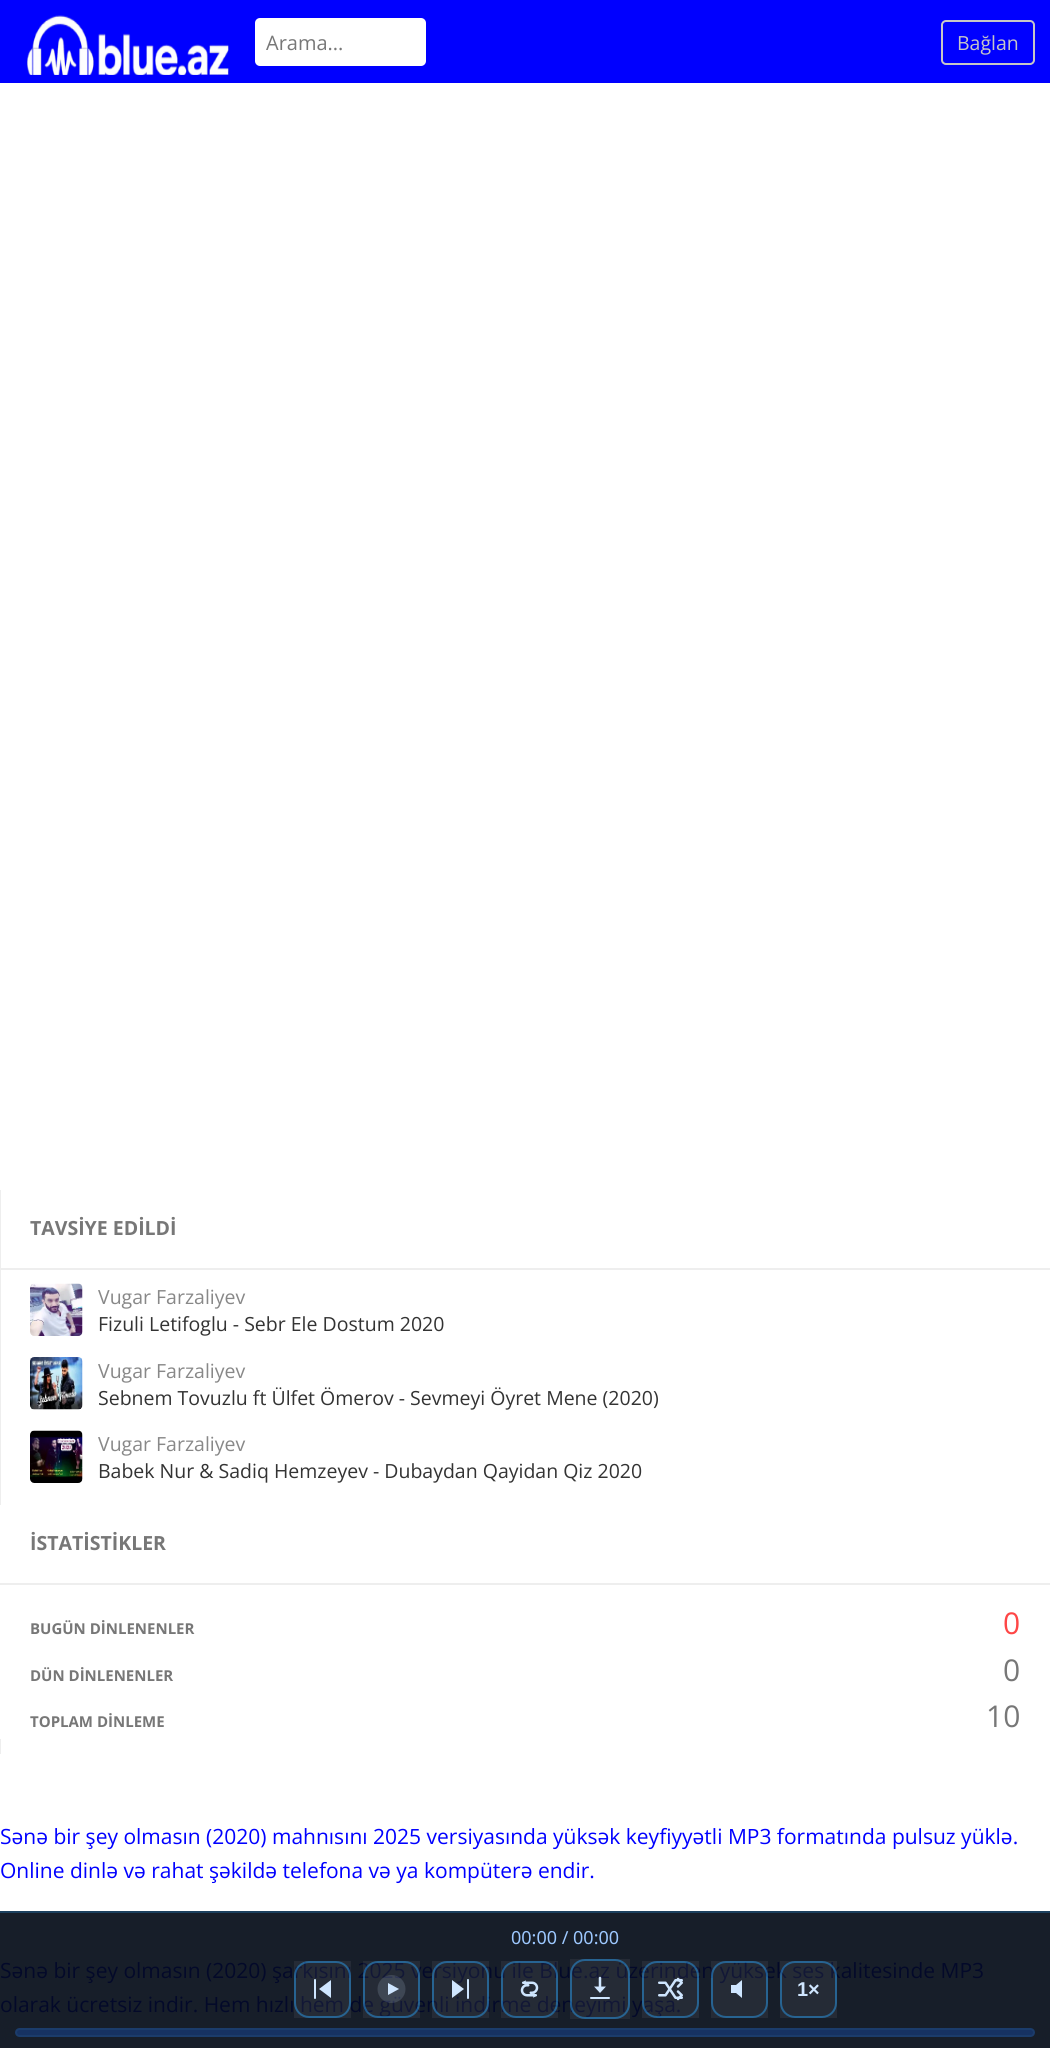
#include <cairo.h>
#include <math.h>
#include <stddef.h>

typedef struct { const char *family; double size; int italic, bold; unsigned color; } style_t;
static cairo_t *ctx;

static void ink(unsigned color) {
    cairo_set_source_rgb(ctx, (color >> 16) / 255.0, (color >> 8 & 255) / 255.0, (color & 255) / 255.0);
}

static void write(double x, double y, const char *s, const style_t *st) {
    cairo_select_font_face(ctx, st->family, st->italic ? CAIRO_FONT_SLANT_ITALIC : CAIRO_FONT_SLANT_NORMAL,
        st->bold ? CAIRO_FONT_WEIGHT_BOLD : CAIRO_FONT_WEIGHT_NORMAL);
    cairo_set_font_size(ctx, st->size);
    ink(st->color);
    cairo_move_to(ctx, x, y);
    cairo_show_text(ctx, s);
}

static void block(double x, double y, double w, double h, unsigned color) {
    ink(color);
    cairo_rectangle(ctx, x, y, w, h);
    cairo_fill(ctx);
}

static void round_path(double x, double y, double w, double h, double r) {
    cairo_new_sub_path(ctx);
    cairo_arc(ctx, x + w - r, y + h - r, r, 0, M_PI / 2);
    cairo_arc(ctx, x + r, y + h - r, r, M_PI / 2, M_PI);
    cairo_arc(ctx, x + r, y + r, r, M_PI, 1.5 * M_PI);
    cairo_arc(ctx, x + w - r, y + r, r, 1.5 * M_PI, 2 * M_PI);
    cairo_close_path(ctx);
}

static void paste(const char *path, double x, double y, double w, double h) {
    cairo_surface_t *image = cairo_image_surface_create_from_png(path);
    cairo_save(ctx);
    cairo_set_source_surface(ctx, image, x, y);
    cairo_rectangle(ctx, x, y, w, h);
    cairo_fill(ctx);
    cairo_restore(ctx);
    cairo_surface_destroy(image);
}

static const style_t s1 = {"Open Sans", 20, 0, 0, 0x777777};
static const style_t s2 = {"Open Sans", 19.5, 0, 0, 0xc6c6c6};
static const style_t s3 = {"Open Sans", 19.5, 0, 1, 0x777777};
static const style_t s4 = {"Open Sans", 19.5, 0, 0, 0x888888};
static const style_t s5 = {"Open Sans", 19.5, 0, 0, 0x333333};
static const style_t s6 = {"Open Sans", 15, 0, 1, 0x777777};
static const style_t s7 = {"Open Sans", 30, 0, 0, 0xfe4646};
static const style_t s8 = {"Open Sans", 30, 0, 0, 0x777777};
static const style_t s9 = {"Open Sans", 21, 0, 0, 0x0000ff};
static const style_t s10 = {"Open Sans", 21, 0, 0, 0x030929};
static const style_t s11 = {"Noto Sans", 18, 0, 0, 0x9dc8ff};
static const style_t s12 = {"Liberation Sans", 20, 0, 1, 0xcfe6ff};

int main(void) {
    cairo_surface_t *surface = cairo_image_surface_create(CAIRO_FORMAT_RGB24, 1050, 2048);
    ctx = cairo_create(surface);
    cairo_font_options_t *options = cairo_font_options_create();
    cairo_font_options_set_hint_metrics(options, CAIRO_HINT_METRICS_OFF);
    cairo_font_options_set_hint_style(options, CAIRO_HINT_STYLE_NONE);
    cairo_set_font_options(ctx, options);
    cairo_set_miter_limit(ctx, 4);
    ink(0xffffff);
    cairo_paint(ctx);
    block(0, 0, 1050, 83, 0x0000ff);
    paste("pic1.png", 27, 15, 202, 60);
    ink(0xffffff);
    round_path(255, 18, 171, 48, 5);
    cairo_fill(ctx);
    write(266, 50, "Arama...", &s1);
    round_path(942, 21, 92, 43, 4);
    ink(0xc6c6c6);
    cairo_stroke(ctx);
    write(957, 50, "Bağlan", &s2);
    block(0, 1913, 1050, 135, 0x171e29);
    block(0, 1190, 1, 315, 0xeeeeee);
    block(0, 1268, 1050, 2, 0xeeeeee);
    write(30, 1235, "TAVSİYE EDİLDİ", &s3);
    paste("pic2.png", 30, 1283, 53, 53);
    write(98, 1304, "Vugar Farzaliyev", &s4);
    write(98, 1331, "Fizuli Letifoglu - Sebr Ele Dostum 2020", &s5);
    paste("pic3.png", 30, 1357, 53, 53);
    write(98, 1378, "Vugar Farzaliyev", &s4);
    write(98, 1405, "Sebnem Tovuzlu ft Ülfet Ömerov - Sevmeyi Öyret Mene (2020)", &s5);
    paste("pic4.png", 30, 1430, 53, 53);
    write(98, 1451, "Vugar Farzaliyev", &s4);
    write(98, 1478, "Babek Nur & Sadiq Hemzeyev - Dubaydan Qayidan Qiz 2020", &s5);
    block(0, 1739, 1, 15, 0xeeeeee);
    block(0, 1583, 1050, 2, 0xeeeeee);
    write(30, 1550, "İSTATİSTİKLER", &s3);
    write(30, 1634, "BUGÜN DİNLENENLER", &s6);
    write(1003, 1634, "0", &s7);
    write(30, 1681, "DÜN DİNLENENLER", &s6);
    write(1003, 1681, "0", &s8);
    write(30, 1727, "TOPLAM DİNLEME", &s6);
    write(986, 1727, "10", &s8);
    write(0, 1844, "Sənə bir şey olmasın (2020) mahnısını 2025 versiyasında yüksək keyfiyyətli MP3 formatında pulsuz yüklə.", &s9);
    write(0, 1878, "Online dinlə və rahat şəkildə telefona və ya kompüterə endir.", &s9);
    write(0, 1978, "Sənə bir şey olmasın (2020) şarkısını 2025 versiyonu ile Blue.az üzerinden yüksek ses kalitesinde MP3", &s10);
    write(0, 2012, "olarak ücretsiz indir. Hem hızlı hem de güvenli indirme deneyimi yaşa.", &s10);
    block(0, 1911, 1050, 2, 0x1c405e);
    write(511, 1944, "00:00 / 00:00", &s11);
    cairo_set_source_rgba(ctx, 1, 1, 1, 0.06);
    cairo_rectangle(ctx, 294, 1961, 57, 57);
    cairo_fill(ctx);
    round_path(295, 1962, 55, 55, 14);
    cairo_set_source_rgba(ctx, 0.165, 0.659, 1, 0.45);
    cairo_stroke(ctx);
    ink(0xcfe6ff);
    round_path(314, 1979, 2, 20, 1);
    cairo_fill(ctx);
    cairo_new_path(ctx);
    cairo_move_to(ctx, 331, 1980);
    cairo_line_to(ctx, 319, 1989);
    cairo_line_to(ctx, 331, 1998);
    cairo_close_path(ctx);
    cairo_fill(ctx);
    cairo_set_source_rgba(ctx, 1, 1, 1, 0.06);
    cairo_rectangle(ctx, 363, 1961, 57, 57);
    cairo_fill(ctx);
    round_path(364, 1962, 55, 55, 14);
    cairo_set_source_rgba(ctx, 0.165, 0.659, 1, 0.45);
    cairo_stroke(ctx);
    cairo_set_source_rgba(ctx, 0.812, 0.902, 1, 0.15);
    cairo_arc(ctx, 391.5, 1989, 14, 0, 2 * M_PI);
    cairo_fill(ctx);
    ink(0xcfe6ff);
    cairo_new_path(ctx);
    cairo_move_to(ctx, 388, 1983);
    cairo_line_to(ctx, 399, 1989);
    cairo_line_to(ctx, 388, 1995);
    cairo_close_path(ctx);
    cairo_fill(ctx);
    cairo_set_source_rgba(ctx, 1, 1, 1, 0.06);
    cairo_rectangle(ctx, 432, 1961, 57, 57);
    cairo_fill(ctx);
    round_path(433, 1962, 55, 55, 14);
    cairo_set_source_rgba(ctx, 0.165, 0.659, 1, 0.45);
    cairo_stroke(ctx);
    ink(0xcfe6ff);
    round_path(467, 1979, 2, 20, 1);
    cairo_fill(ctx);
    cairo_new_path(ctx);
    cairo_move_to(ctx, 452, 1980);
    cairo_line_to(ctx, 464, 1989);
    cairo_line_to(ctx, 452, 1998);
    cairo_close_path(ctx);
    cairo_fill(ctx);
    cairo_set_source_rgba(ctx, 1, 1, 1, 0.06);
    cairo_rectangle(ctx, 501, 1961, 57, 57);
    cairo_fill(ctx);
    round_path(502, 1962, 55, 55, 14);
    cairo_set_source_rgba(ctx, 0.165, 0.659, 1, 0.45);
    cairo_stroke(ctx);
    paste("pic5.png", 520, 1980, 19, 18);
    cairo_set_source_rgba(ctx, 1, 1, 1, 0.06);
    cairo_rectangle(ctx, 570, 1959, 60, 60);
    cairo_fill(ctx);
    round_path(571, 1960, 58, 58, 14);
    cairo_set_source_rgba(ctx, 0.165, 0.659, 1, 0.45);
    cairo_stroke(ctx);
    cairo_new_path(ctx);
    cairo_move_to(ctx, 600, 1978);
    cairo_line_to(ctx, 600, 1990);
    ink(0xcfe6ff);
    cairo_set_line_width(ctx, 2.5);
    cairo_set_line_cap(ctx, CAIRO_LINE_CAP_ROUND);
    cairo_stroke(ctx);
    cairo_new_path(ctx);
    cairo_move_to(ctx, 594, 1986.5);
    cairo_line_to(ctx, 600, 1993);
    cairo_line_to(ctx, 606, 1986.5);
    cairo_fill(ctx);
    round_path(590, 1997, 20, 2, 1);
    cairo_fill(ctx);
    cairo_set_source_rgba(ctx, 1, 1, 1, 0.06);
    cairo_rectangle(ctx, 642, 1961, 57, 57);
    cairo_fill(ctx);
    round_path(643, 1962, 55, 55, 14);
    cairo_set_source_rgba(ctx, 0.165, 0.659, 1, 0.45);
    cairo_set_line_width(ctx, 2);
    cairo_set_line_cap(ctx, CAIRO_LINE_CAP_BUTT);
    cairo_stroke(ctx);
    paste("pic6.png", 658, 1977, 25, 24);
    cairo_set_source_rgba(ctx, 1, 1, 1, 0.06);
    cairo_rectangle(ctx, 711, 1961, 57, 57);
    cairo_fill(ctx);
    round_path(712, 1962, 55, 55, 14);
    cairo_set_source_rgba(ctx, 0.165, 0.659, 1, 0.45);
    cairo_stroke(ctx);
    ink(0xcfe6ff);
    cairo_new_path(ctx);
    cairo_move_to(ctx, 731, 1985);
    cairo_line_to(ctx, 736, 1985);
    cairo_line_to(ctx, 742, 1980);
    cairo_line_to(ctx, 742, 1998);
    cairo_line_to(ctx, 736, 1993);
    cairo_line_to(ctx, 731, 1993);
    cairo_close_path(ctx);
    cairo_fill(ctx);
    cairo_set_source_rgba(ctx, 1, 1, 1, 0.06);
    cairo_rectangle(ctx, 780, 1961, 57, 57);
    cairo_fill(ctx);
    round_path(781, 1962, 55, 55, 14);
    cairo_set_source_rgba(ctx, 0.165, 0.659, 1, 0.45);
    cairo_stroke(ctx);
    write(797, 1996, "1×", &s12);
    ink(0x163262);
    round_path(16, 2029, 1018, 7, 3.5);
    cairo_fill_preserve(ctx);
    ink(0x1b3c6b);
    cairo_stroke(ctx);
    cairo_surface_write_to_png(surface, "screenshot.png");
    cairo_font_options_destroy(options);
    cairo_destroy(ctx);
    cairo_surface_destroy(surface);
    return 0;
}
